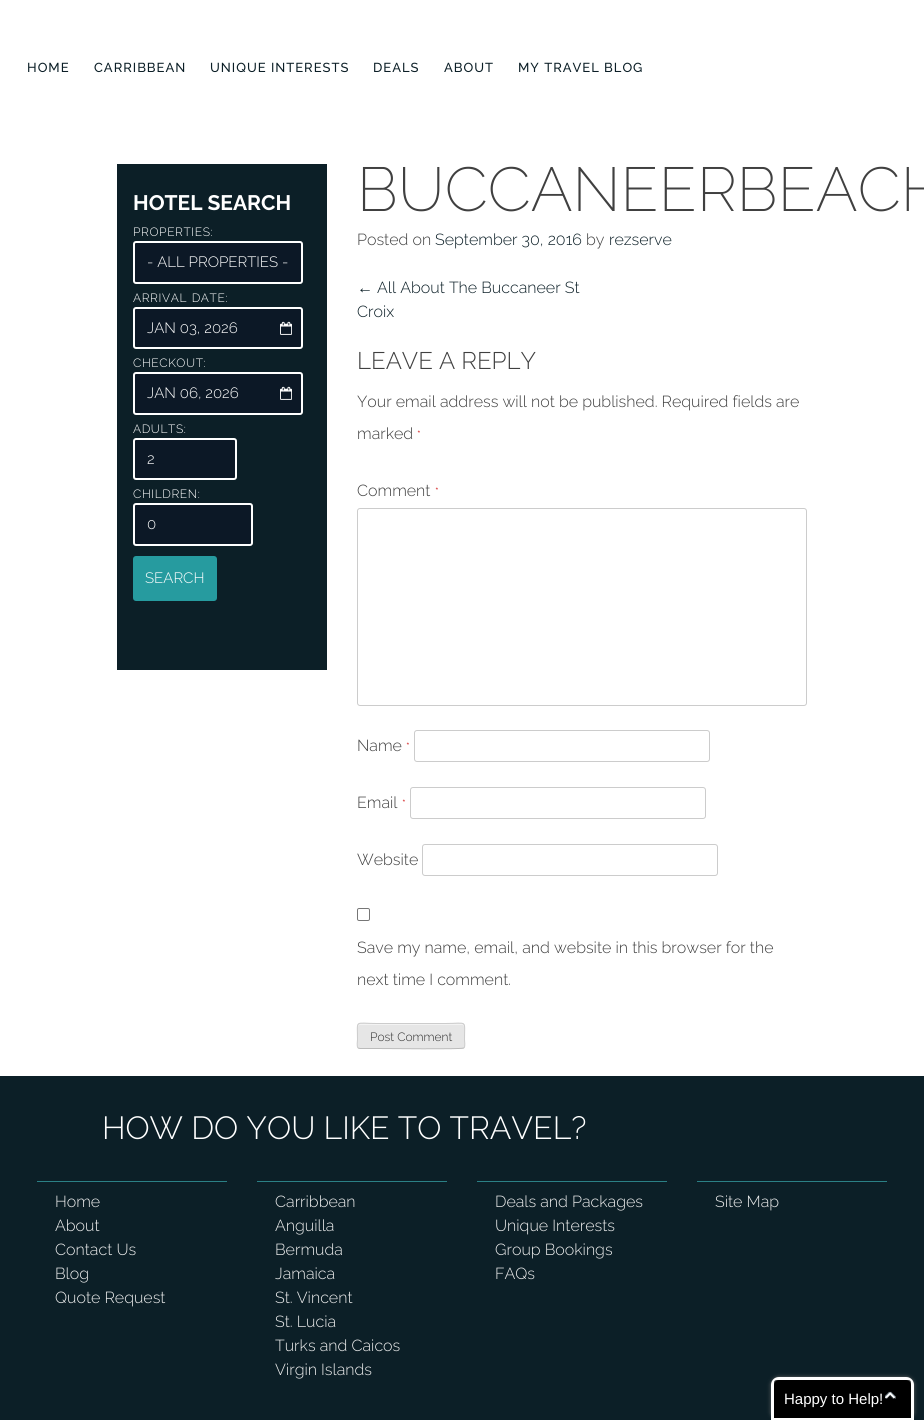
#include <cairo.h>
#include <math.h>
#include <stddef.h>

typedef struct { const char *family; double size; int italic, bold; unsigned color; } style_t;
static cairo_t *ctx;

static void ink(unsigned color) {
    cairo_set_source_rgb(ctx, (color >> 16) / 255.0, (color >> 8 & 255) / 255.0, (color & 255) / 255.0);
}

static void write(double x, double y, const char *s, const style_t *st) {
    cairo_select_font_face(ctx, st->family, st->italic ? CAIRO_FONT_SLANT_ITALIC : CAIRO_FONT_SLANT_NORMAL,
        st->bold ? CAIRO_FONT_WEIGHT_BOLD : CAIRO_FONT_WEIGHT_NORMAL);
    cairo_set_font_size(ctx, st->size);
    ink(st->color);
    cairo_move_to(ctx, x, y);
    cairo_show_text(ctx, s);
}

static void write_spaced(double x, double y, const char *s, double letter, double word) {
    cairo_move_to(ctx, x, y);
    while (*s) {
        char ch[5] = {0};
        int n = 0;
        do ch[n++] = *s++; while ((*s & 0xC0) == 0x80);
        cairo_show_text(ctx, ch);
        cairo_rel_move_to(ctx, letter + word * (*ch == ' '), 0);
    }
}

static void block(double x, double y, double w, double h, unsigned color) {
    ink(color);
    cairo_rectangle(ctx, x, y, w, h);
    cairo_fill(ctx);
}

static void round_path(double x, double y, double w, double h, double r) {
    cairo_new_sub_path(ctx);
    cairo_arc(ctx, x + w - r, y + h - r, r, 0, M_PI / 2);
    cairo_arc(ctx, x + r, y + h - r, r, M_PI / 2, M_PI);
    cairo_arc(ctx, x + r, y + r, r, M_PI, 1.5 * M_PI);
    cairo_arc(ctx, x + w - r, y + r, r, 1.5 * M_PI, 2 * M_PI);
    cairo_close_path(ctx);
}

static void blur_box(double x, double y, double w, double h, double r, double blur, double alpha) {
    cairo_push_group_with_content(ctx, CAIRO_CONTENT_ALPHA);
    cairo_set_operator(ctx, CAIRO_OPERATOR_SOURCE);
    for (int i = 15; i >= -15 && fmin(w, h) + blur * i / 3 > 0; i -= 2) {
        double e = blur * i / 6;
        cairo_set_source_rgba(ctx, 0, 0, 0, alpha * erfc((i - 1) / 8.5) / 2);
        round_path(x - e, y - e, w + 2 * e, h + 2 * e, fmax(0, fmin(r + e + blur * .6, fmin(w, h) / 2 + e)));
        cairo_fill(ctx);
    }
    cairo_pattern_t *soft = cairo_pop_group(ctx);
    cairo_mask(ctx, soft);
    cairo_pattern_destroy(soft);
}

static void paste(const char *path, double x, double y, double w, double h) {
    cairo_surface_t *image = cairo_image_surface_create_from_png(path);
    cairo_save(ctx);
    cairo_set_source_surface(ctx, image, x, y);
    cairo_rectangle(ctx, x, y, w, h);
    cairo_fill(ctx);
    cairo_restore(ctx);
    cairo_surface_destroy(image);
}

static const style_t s1 = {"Raleway", 21, 0, 1, 0xffffff};
static const style_t s2 = {"Raleway Light", 15, 0, 0, 0xffffff};
static const style_t s3 = {"Raleway ExtraLight", 62, 0, 0, 0x404040};
static const style_t s4 = {"Raleway Light", 16, 0, 0, 0x404040};
static const style_t s5 = {"Raleway Light", 16, 0, 0, 0x0c1f27};
static const style_t s6 = {"Liberation Serif", 16, 0, 0, 0x0c1f27};
static const style_t s7 = {"Raleway Light", 24, 0, 0, 0x404040};
static const style_t s8 = {"Raleway Light", 12, 0, 0, 0xcc0000};
static const style_t s9 = {"Raleway Light", 12, 0, 0, 0x2e2e2e};
static const style_t s10 = {"Raleway Light", 32, 0, 0, 0xffffff};
static const style_t s11 = {"Raleway Light", 16, 0, 0, 0xededed};
static const style_t s12 = {"Liberation Sans", 15, 0, 0, 0xffffff};

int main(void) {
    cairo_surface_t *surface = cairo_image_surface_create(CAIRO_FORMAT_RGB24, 924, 1420);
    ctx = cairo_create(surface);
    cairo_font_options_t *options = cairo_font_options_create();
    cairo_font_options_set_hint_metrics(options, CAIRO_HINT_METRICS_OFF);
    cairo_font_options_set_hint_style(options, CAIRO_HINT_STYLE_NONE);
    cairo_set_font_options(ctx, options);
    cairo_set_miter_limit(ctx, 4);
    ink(0x0c1f27);
    cairo_paint(ctx);
    block(0, 0, 924, 1076, 0xffffff);
    cairo_select_font_face(ctx, "Raleway Medium", CAIRO_FONT_SLANT_NORMAL, CAIRO_FONT_WEIGHT_NORMAL);
    cairo_set_font_size(ctx, 13);
    ink(0x0c1f27);
    write_spaced(27, 72, "HOME", 1, 0);
    write_spaced(94, 72, "CARRIBBEAN", 1, 0);
    write_spaced(210, 72, "UNIQUE INTERESTS", 1, 0);
    write_spaced(373, 72, "DEALS", 1, 0);
    write_spaced(444, 72, "ABOUT", 1, 0);
    write_spaced(518, 72, "MY TRAVEL BLOG", 1, 0);
    block(117, 164, 210, 506, 0x0c1f27);
    write(133, 210, "HOTEL SEARCH", &s1);
    cairo_select_font_face(ctx, "Raleway Light", CAIRO_FONT_SLANT_NORMAL, CAIRO_FONT_WEIGHT_NORMAL);
    cairo_set_font_size(ctx, 12);
    write_spaced(133, 236, "PROPERTIES:", 0.6, 0);
    ink(0x0c1826);
    round_path(134, 242, 168, 41, 2);
    cairo_fill_preserve(ctx);
    ink(0xffffff);
    cairo_stroke(ctx);
    write(147, 267, "- ALL PROPERTIES -", &s2);
    cairo_set_font_size(ctx, 12);
    write_spaced(133, 302, "ARRIVAL DATE:", 0.6, 1);
    ink(0x0c1826);
    round_path(134, 308, 168, 40, 2);
    cairo_fill_preserve(ctx);
    ink(0xffffff);
    cairo_stroke(ctx);
    write(147, 333, "JAN 03, 2026", &s2);
    paste("pic1.png", 280, 321, 12, 14);
    cairo_set_font_size(ctx, 12);
    write_spaced(133, 367, "CHECKOUT:", 0.6, 0);
    ink(0x0c1826);
    round_path(134, 373, 168, 41, 2);
    cairo_fill_preserve(ctx);
    ink(0xffffff);
    cairo_stroke(ctx);
    write(147, 398, "JAN 06, 2026", &s2);
    paste("pic1.png", 280, 386, 12, 14);
    cairo_set_font_size(ctx, 12);
    write_spaced(133, 433, "ADULTS:", 0.6, 0);
    ink(0x0c1826);
    round_path(134, 439, 102, 40, 2);
    cairo_fill_preserve(ctx);
    ink(0xffffff);
    cairo_stroke(ctx);
    write(147, 464, "2", &s2);
    cairo_set_font_size(ctx, 12);
    write_spaced(133, 498, "CHILDREN:", 0.6, 0);
    ink(0x0c1826);
    round_path(134, 504, 118, 41, 2);
    cairo_fill_preserve(ctx);
    ink(0xffffff);
    cairo_stroke(ctx);
    write(147, 529, "0", &s2);
    ink(0x269b9f);
    round_path(133, 556, 84, 45, 3);
    cairo_fill(ctx);
    write(145, 583, "SEARCH", &s2);
    write(357, 211, "BUCCANEERBEACH", &s3);
    write(357, 245, "Posted on", &s4);
    write(435, 245, "September 30, 2016", &s5);
    write(586, 245, "by", &s4);
    write(609, 245, "rezserve", &s5);
    write(357, 293, "←", &s6);
    write(377, 293, "All About The Buccaneer St", &s5);
    write(357, 317, "Croix", &s5);
    write(357, 369, "LEAVE A REPLY", &s7);
    write(357, 407, "Your email address will not be published. Required fields are", &s4);
    write(357, 439, "marked", &s4);
    write(417, 439, "*", &s8);
    write(357, 496, "Comment", &s4);
    write(435, 496, "*", &s8);
    round_path(357.5, 508.5, 449, 197, 2.5);
    ink(0xcccccc);
    cairo_set_line_width(ctx, 1);
    cairo_stroke(ctx);
    write(357, 751, "Name", &s4);
    write(406, 751, "*", &s8);
    round_path(414.5, 730.5, 295, 31, 2.5);
    ink(0xcccccc);
    cairo_stroke(ctx);
    write(357, 808, "Email", &s4);
    write(402, 808, "*", &s8);
    round_path(410.5, 787.5, 295, 31, 2.5);
    ink(0xcccccc);
    cairo_stroke(ctx);
    write(357, 865, "Website", &s4);
    round_path(422.5, 844.5, 295, 31, 2.5);
    ink(0xcccccc);
    cairo_stroke(ctx);
    round_path(357.5, 908.5, 12, 12, 1.5);
    ink(0x767676);
    cairo_stroke(ctx);
    write(357, 953, "Save my name, email, and website in this browser for the", &s4);
    write(357, 985, "next time I comment.", &s4);
    ink(0xe6e6e6);
    round_path(357, 1023, 108, 26, 3);
    cairo_fill(ctx);
    ink(0xf3f3f3);
    cairo_new_path(ctx);
    cairo_move_to(ctx, 360, 1025);
    cairo_line_to(ctx, 462, 1025);
    cairo_curve_to(ctx, 463, 1025, 464, 1026, 464, 1027);
    cairo_curve_to(ctx, 464, 1026, 464, 1024, 462, 1024);
    cairo_line_to(ctx, 360, 1024);
    cairo_curve_to(ctx, 358, 1024, 358, 1026, 358, 1027);
    cairo_curve_to(ctx, 358, 1026, 359, 1025, 360, 1025);
    cairo_close_path(ctx);
    cairo_fill(ctx);
    cairo_new_path(ctx);
    cairo_move_to(ctx, 464, 1048);
    cairo_line_to(ctx, 463.5, 1048);
    cairo_curve_to(ctx, 461.5, 1049.5, 386, 1048.5, 377, 1048.5);
    cairo_line_to(ctx, 360, 1048.5);
    cairo_line_to(ctx, 358, 1048);
    ink(0xbbbbbb);
    cairo_stroke(ctx);
    cairo_new_path(ctx);
    cairo_move_to(ctx, 358, 1048);
    cairo_curve_to(ctx, 356.5, 1046, 357.5, 1041.5, 357.5, 1039.5);
    cairo_curve_to(ctx, 357.5, 1019, 354, 1023.5, 377, 1023.5);
    cairo_line_to(ctx, 445, 1023.5);
    cairo_curve_to(ctx, 468, 1023.5, 464.5, 1019, 464.5, 1039.5);
    cairo_curve_to(ctx, 464.5, 1041.5, 465.5, 1046, 464, 1048);
    ink(0xcccccc);
    cairo_stroke(ctx);
    write(370, 1041, "Post Comment", &s9);
    write(102, 1139, "HOW DO YOU LIKE TO TRAVEL?", &s10);
    block(37, 1181, 190, 1, 0x2b8085);
    write(55, 1207, "Home", &s11);
    write(55, 1231, "About", &s11);
    write(55, 1255, "Contact Us", &s11);
    write(55, 1279, "Blog", &s11);
    write(55, 1303, "Quote Request", &s11);
    block(257, 1181, 190, 1, 0x2b8085);
    write(275, 1207, "Carribbean", &s11);
    write(275, 1231, "Anguilla", &s11);
    write(275, 1255, "Bermuda", &s11);
    write(275, 1279, "Jamaica", &s11);
    write(275, 1303, "St. Vincent", &s11);
    write(275, 1327, "St. Lucia", &s11);
    write(275, 1351, "Turks and Caicos", &s11);
    write(275, 1375, "Virgin Islands", &s11);
    block(477, 1181, 190, 1, 0x2b8085);
    write(495, 1207, "Deals and Packages", &s11);
    write(495, 1231, "Unique Interests", &s11);
    write(495, 1255, "Group Bookings", &s11);
    write(495, 1279, "FAQs", &s11);
    block(697, 1181, 190, 1, 0x2b8085);
    write(715, 1207, "Site Map", &s11);
    ink(0x666666);
    blur_box(771, 1377, 143, 43, 8, 2, 1);
    ink(0x000000);
    cairo_new_path(ctx);
    cairo_move_to(ctx, 779, 1380);
    cairo_line_to(ctx, 906, 1380);
    cairo_curve_to(ctx, 909, 1380, 911, 1382, 911, 1385);
    cairo_line_to(ctx, 911, 1418);
    cairo_line_to(ctx, 774, 1418);
    cairo_line_to(ctx, 774, 1385);
    cairo_curve_to(ctx, 774, 1382, 776, 1380, 779, 1380);
    cairo_close_path(ctx);
    cairo_fill(ctx);
    paste("pic2.png", 885, 1391, 11, 8);
    cairo_new_path(ctx);
    cairo_move_to(ctx, 779, 1378);
    cairo_line_to(ctx, 906, 1378);
    cairo_curve_to(ctx, 910, 1378, 913, 1381, 913, 1385);
    cairo_line_to(ctx, 913, 1419);
    cairo_line_to(ctx, 772, 1419);
    cairo_line_to(ctx, 772, 1385);
    cairo_curve_to(ctx, 772, 1381, 775, 1378, 779, 1378);
    cairo_close_path(ctx);
    ink(0xffffff);
    cairo_set_line_width(ctx, 2);
    cairo_stroke(ctx);
    block(775, 1379, 135, 1, 0xffffff);
    block(911, 1381, 1, 39, 0xffffff);
    block(773, 1381, 1, 39, 0xffffff);
    write(784, 1404, "Happy to Help!", &s12);
    cairo_surface_write_to_png(surface, "screenshot.png");
    cairo_font_options_destroy(options);
    cairo_destroy(ctx);
    cairo_surface_destroy(surface);
    return 0;
}
